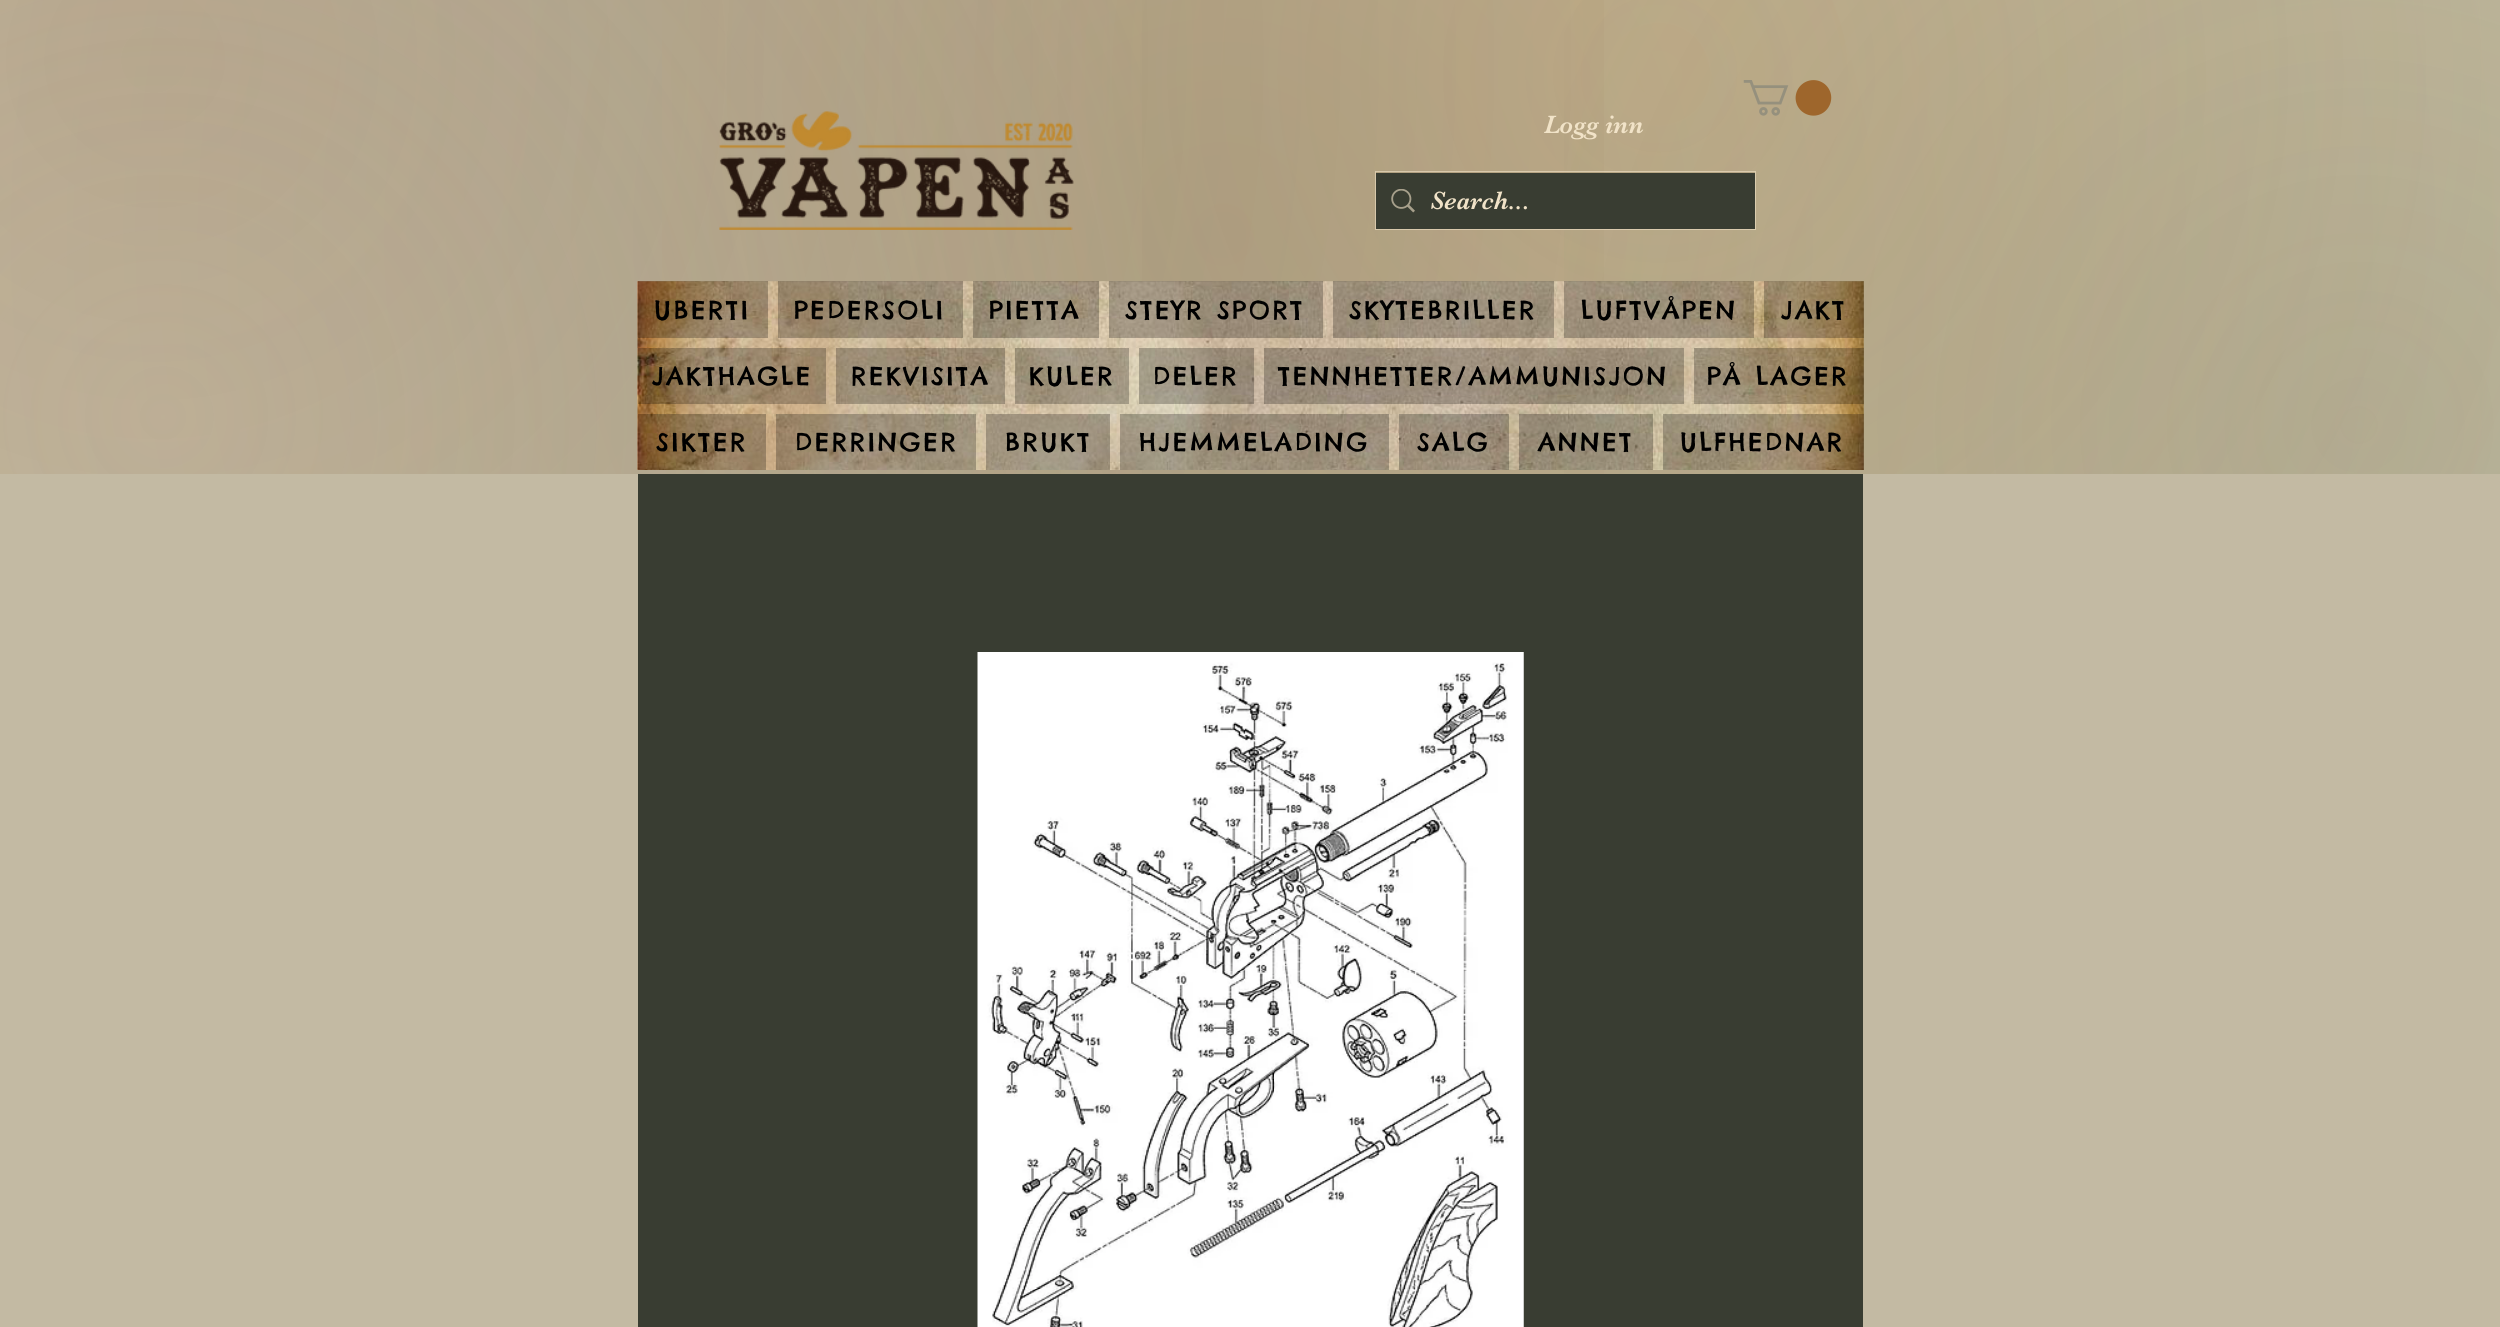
#include <cairo.h>
#include <math.h>
#include <stddef.h>

typedef struct { const char *family; double size; int italic, bold; unsigned color; } style_t;
static cairo_t *ctx;

static void ink(unsigned color) {
    cairo_set_source_rgb(ctx, (color >> 16) / 255.0, (color >> 8 & 255) / 255.0, (color & 255) / 255.0);
}

static void write(double x, double y, const char *s, const style_t *st) {
    cairo_select_font_face(ctx, st->family, st->italic ? CAIRO_FONT_SLANT_ITALIC : CAIRO_FONT_SLANT_NORMAL,
        st->bold ? CAIRO_FONT_WEIGHT_BOLD : CAIRO_FONT_WEIGHT_NORMAL);
    cairo_set_font_size(ctx, st->size);
    ink(st->color);
    cairo_move_to(ctx, x, y);
    cairo_show_text(ctx, s);
}

static void write_spaced(double x, double y, const char *s, double letter, double word) {
    cairo_move_to(ctx, x, y);
    while (*s) {
        char ch[5] = {0};
        int n = 0;
        do ch[n++] = *s++; while ((*s & 0xC0) == 0x80);
        cairo_show_text(ctx, ch);
        cairo_rel_move_to(ctx, letter + word * (*ch == ' '), 0);
    }
}

static void block(double x, double y, double w, double h, unsigned color) {
    ink(color);
    cairo_rectangle(ctx, x, y, w, h);
    cairo_fill(ctx);
}

static void paste(const char *path, double x, double y, double w, double h) {
    cairo_surface_t *image = cairo_image_surface_create_from_png(path);
    cairo_save(ctx);
    cairo_set_source_surface(ctx, image, x, y);
    cairo_rectangle(ctx, x, y, w, h);
    cairo_fill(ctx);
    cairo_restore(ctx);
    cairo_surface_destroy(image);
}

static const style_t s1 = {"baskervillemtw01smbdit", 26, 0, 0, 0xf1e3c8};

int main(void) {
    cairo_surface_t *surface = cairo_image_surface_create(CAIRO_FORMAT_RGB24, 2500, 1327);
    ctx = cairo_create(surface);
    cairo_font_options_t *options = cairo_font_options_create();
    cairo_font_options_set_hint_metrics(options, CAIRO_HINT_METRICS_OFF);
    cairo_font_options_set_hint_style(options, CAIRO_HINT_STYLE_NONE);
    cairo_set_font_options(ctx, options);
    cairo_set_miter_limit(ctx, 4);
    cairo_pattern_t *gradient;
    ink(0xc3baa3);
    cairo_paint(ctx);
    gradient = cairo_pattern_create_radial(1223, 235, 0, 1223, 235, 1300);
    cairo_pattern_add_color_stop_rgba(gradient, 0, 0.667, 0.651, 0.557, 1);
    cairo_pattern_add_color_stop_rgba(gradient, 1, 0.757, 0.733, 0.631, 1);
    cairo_set_source(ctx, gradient);
    cairo_pattern_destroy(gradient);
    cairo_rectangle(ctx, 0, 0, 2500, 474);
    cairo_fill(ctx);
    gradient = cairo_pattern_create_radial(1659, 74, 0, 1659, 74, 1706);
    cairo_pattern_add_color_stop_rgba(gradient, 0, 0.929, 0.6, 0.259, 0.17);
    cairo_pattern_add_color_stop_rgba(gradient, 0.7, 0.929, 0.6, 0.259, 0);
    cairo_set_source(ctx, gradient);
    cairo_pattern_destroy(gradient);
    cairo_rectangle(ctx, 662, 0, 1838, 474);
    cairo_fill(ctx);
    gradient = cairo_pattern_create_radial(154, 60, 0, 154, 60, 2382);
    cairo_pattern_add_color_stop_rgba(gradient, 0, 0.404, 0.153, 0.078, 0.17);
    cairo_pattern_add_color_stop_rgba(gradient, 0.7, 0.404, 0.153, 0.078, 0);
    cairo_set_source(ctx, gradient);
    cairo_pattern_destroy(gradient);
    cairo_rectangle(ctx, 0, 0, 1604, 474);
    cairo_fill(ctx);
    gradient = cairo_pattern_create_radial(2359, 425, 0, 2359, 425, 2397);
    cairo_pattern_add_color_stop_rgba(gradient, 0, 0.294, 0.353, 0.318, 0.13);
    cairo_pattern_add_color_stop_rgba(gradient, 0.4, 0.294, 0.353, 0.318, 0);
    cairo_set_source(ctx, gradient);
    cairo_pattern_destroy(gradient);
    cairo_rectangle(ctx, 1564, 0, 936, 474);
    cairo_fill(ctx);
    paste("pic1.png", 1743, 80, 89, 36);
    gradient = cairo_pattern_create_radial(163, 417, 0, 163, 417, 2374);
    cairo_pattern_add_color_stop_rgba(gradient, 0, 0.945, 0.89, 0.784, 0.17);
    cairo_pattern_add_color_stop_rgba(gradient, 0.5, 0.945, 0.89, 0.784, 0);
    cairo_set_source(ctx, gradient);
    cairo_pattern_destroy(gradient);
    cairo_rectangle(ctx, 0, 0, 1142, 474);
    cairo_fill(ctx);
    paste("pic2.png", 719, 111, 355, 119);
    write(1544, 133, "Logg inn", &s1);
    cairo_rectangle(ctx, 1375.5, 171.5, 380, 58);
    cairo_set_source_rgba(ctx, 0.945, 0.89, 0.784, 0.6);
    cairo_set_line_width(ctx, 1);
    cairo_stroke(ctx);
    block(1376, 173, 379, 56, 0x393d32);
    paste("pic3.png", 1391, 189, 24, 24);
    write(1430, 209, "Search...", &s1);
    paste("pic4.png", 637, 281, 1227, 189);
    cairo_set_source_rgba(ctx, 0, 0, 0, 0.25);
    cairo_rectangle(ctx, 638, 281, 130, 57);
    cairo_fill(ctx);
    cairo_select_font_face(ctx, "Chelsea Market", CAIRO_FONT_SLANT_NORMAL, CAIRO_FONT_WEIGHT_NORMAL);
    cairo_set_font_size(ctx, 25);
    ink(0x000000);
    write_spaced(654, 319, "UBERTI", 2.5, 0);
    cairo_set_source_rgba(ctx, 0, 0, 0, 0.25);
    cairo_rectangle(ctx, 778, 281, 185, 57);
    cairo_fill(ctx);
    ink(0x000000);
    write_spaced(794, 319, "PEDERSOLI", 2.5, 0);
    cairo_set_source_rgba(ctx, 0, 0, 0, 0.25);
    cairo_rectangle(ctx, 973, 281, 126, 57);
    cairo_fill(ctx);
    ink(0x000000);
    write_spaced(989, 319, "PIETTA", 2.5, 0);
    cairo_set_source_rgba(ctx, 0, 0, 0, 0.25);
    cairo_rectangle(ctx, 1109, 281, 214, 57);
    cairo_fill(ctx);
    ink(0x000000);
    write_spaced(1125, 319, "STEYR SPORT", 2.5, 0);
    cairo_set_source_rgba(ctx, 0, 0, 0, 0.25);
    cairo_rectangle(ctx, 1333, 281, 221, 57);
    cairo_fill(ctx);
    ink(0x000000);
    write_spaced(1349, 319, "SKYTEBRILLER", 2.5, 0);
    cairo_set_source_rgba(ctx, 0, 0, 0, 0.25);
    cairo_rectangle(ctx, 1564, 281, 190, 57);
    cairo_fill(ctx);
    ink(0x000000);
    write_spaced(1581, 319, "LUFTVÅPEN", 2.5, 0);
    cairo_set_source_rgba(ctx, 0, 0, 0, 0.25);
    cairo_rectangle(ctx, 1764, 281, 100, 57);
    cairo_fill(ctx);
    ink(0x000000);
    write_spaced(1781, 319, "JAKT", 2.5, 0);
    cairo_set_source_rgba(ctx, 0, 0, 0, 0.25);
    cairo_rectangle(ctx, 638, 348, 188, 56);
    cairo_fill(ctx);
    ink(0x000000);
    write_spaced(652, 385, "JAKTHAGLE", 2.5, 0);
    cairo_set_source_rgba(ctx, 0, 0, 0, 0.25);
    cairo_rectangle(ctx, 836, 348, 169, 56);
    cairo_fill(ctx);
    ink(0x000000);
    write_spaced(851, 385, "REKVISITA", 2.5, 0);
    cairo_set_source_rgba(ctx, 0, 0, 0, 0.25);
    cairo_rectangle(ctx, 1015, 348, 114, 56);
    cairo_fill(ctx);
    ink(0x000000);
    write_spaced(1029, 385, "KULER", 2.5, 0);
    cairo_set_source_rgba(ctx, 0, 0, 0, 0.25);
    cairo_rectangle(ctx, 1139, 348, 115, 56);
    cairo_fill(ctx);
    ink(0x000000);
    write_spaced(1153, 385, "DELER", 2.5, 0);
    cairo_set_source_rgba(ctx, 0, 0, 0, 0.25);
    cairo_rectangle(ctx, 1264, 348, 420, 56);
    cairo_fill(ctx);
    ink(0x000000);
    write_spaced(1278, 385, "TENNHETTER/AMMUNISJON", 2.5, 0);
    cairo_set_source_rgba(ctx, 0, 0, 0, 0.25);
    cairo_rectangle(ctx, 1694, 348, 170, 56);
    cairo_fill(ctx);
    ink(0x000000);
    write_spaced(1707, 385, "PÅ LAGER", 2.5, 0);
    cairo_set_source_rgba(ctx, 0, 0, 0, 0.25);
    cairo_rectangle(ctx, 638, 414, 128, 56);
    cairo_fill(ctx);
    ink(0x000000);
    write_spaced(656, 451, "SIKTER", 2.5, 0);
    cairo_set_source_rgba(ctx, 0, 0, 0, 0.25);
    cairo_rectangle(ctx, 776, 414, 200, 56);
    cairo_fill(ctx);
    ink(0x000000);
    write_spaced(795, 451, "DERRINGER", 2.5, 0);
    cairo_set_source_rgba(ctx, 0, 0, 0, 0.25);
    cairo_rectangle(ctx, 986, 414, 124, 56);
    cairo_fill(ctx);
    ink(0x000000);
    write_spaced(1005, 451, "BRUKT", 2.5, 0);
    cairo_set_source_rgba(ctx, 0, 0, 0, 0.25);
    cairo_rectangle(ctx, 1120, 414, 269, 56);
    cairo_fill(ctx);
    ink(0x000000);
    write_spaced(1139, 451, "HJEMMELADING", 2.5, 0);
    cairo_set_source_rgba(ctx, 0, 0, 0, 0.25);
    cairo_rectangle(ctx, 1399, 414, 110, 56);
    cairo_fill(ctx);
    ink(0x000000);
    write_spaced(1417, 451, "SALG", 2.5, 0);
    cairo_set_source_rgba(ctx, 0, 0, 0, 0.25);
    cairo_rectangle(ctx, 1519, 414, 134, 56);
    cairo_fill(ctx);
    ink(0x000000);
    write_spaced(1538, 451, "ANNET", 2.5, 0);
    cairo_set_source_rgba(ctx, 0, 0, 0, 0.25);
    cairo_rectangle(ctx, 1663, 414, 201, 56);
    cairo_fill(ctx);
    ink(0x000000);
    write_spaced(1680, 451, "ULFHEDNAR", 2.5, 0);
    block(638, 474, 1225, 853, 0x393d32);
    paste("pic5.png", 977, 652, 547, 675);
    cairo_surface_write_to_png(surface, "screenshot.png");
    cairo_font_options_destroy(options);
    cairo_destroy(ctx);
    cairo_surface_destroy(surface);
    return 0;
}
